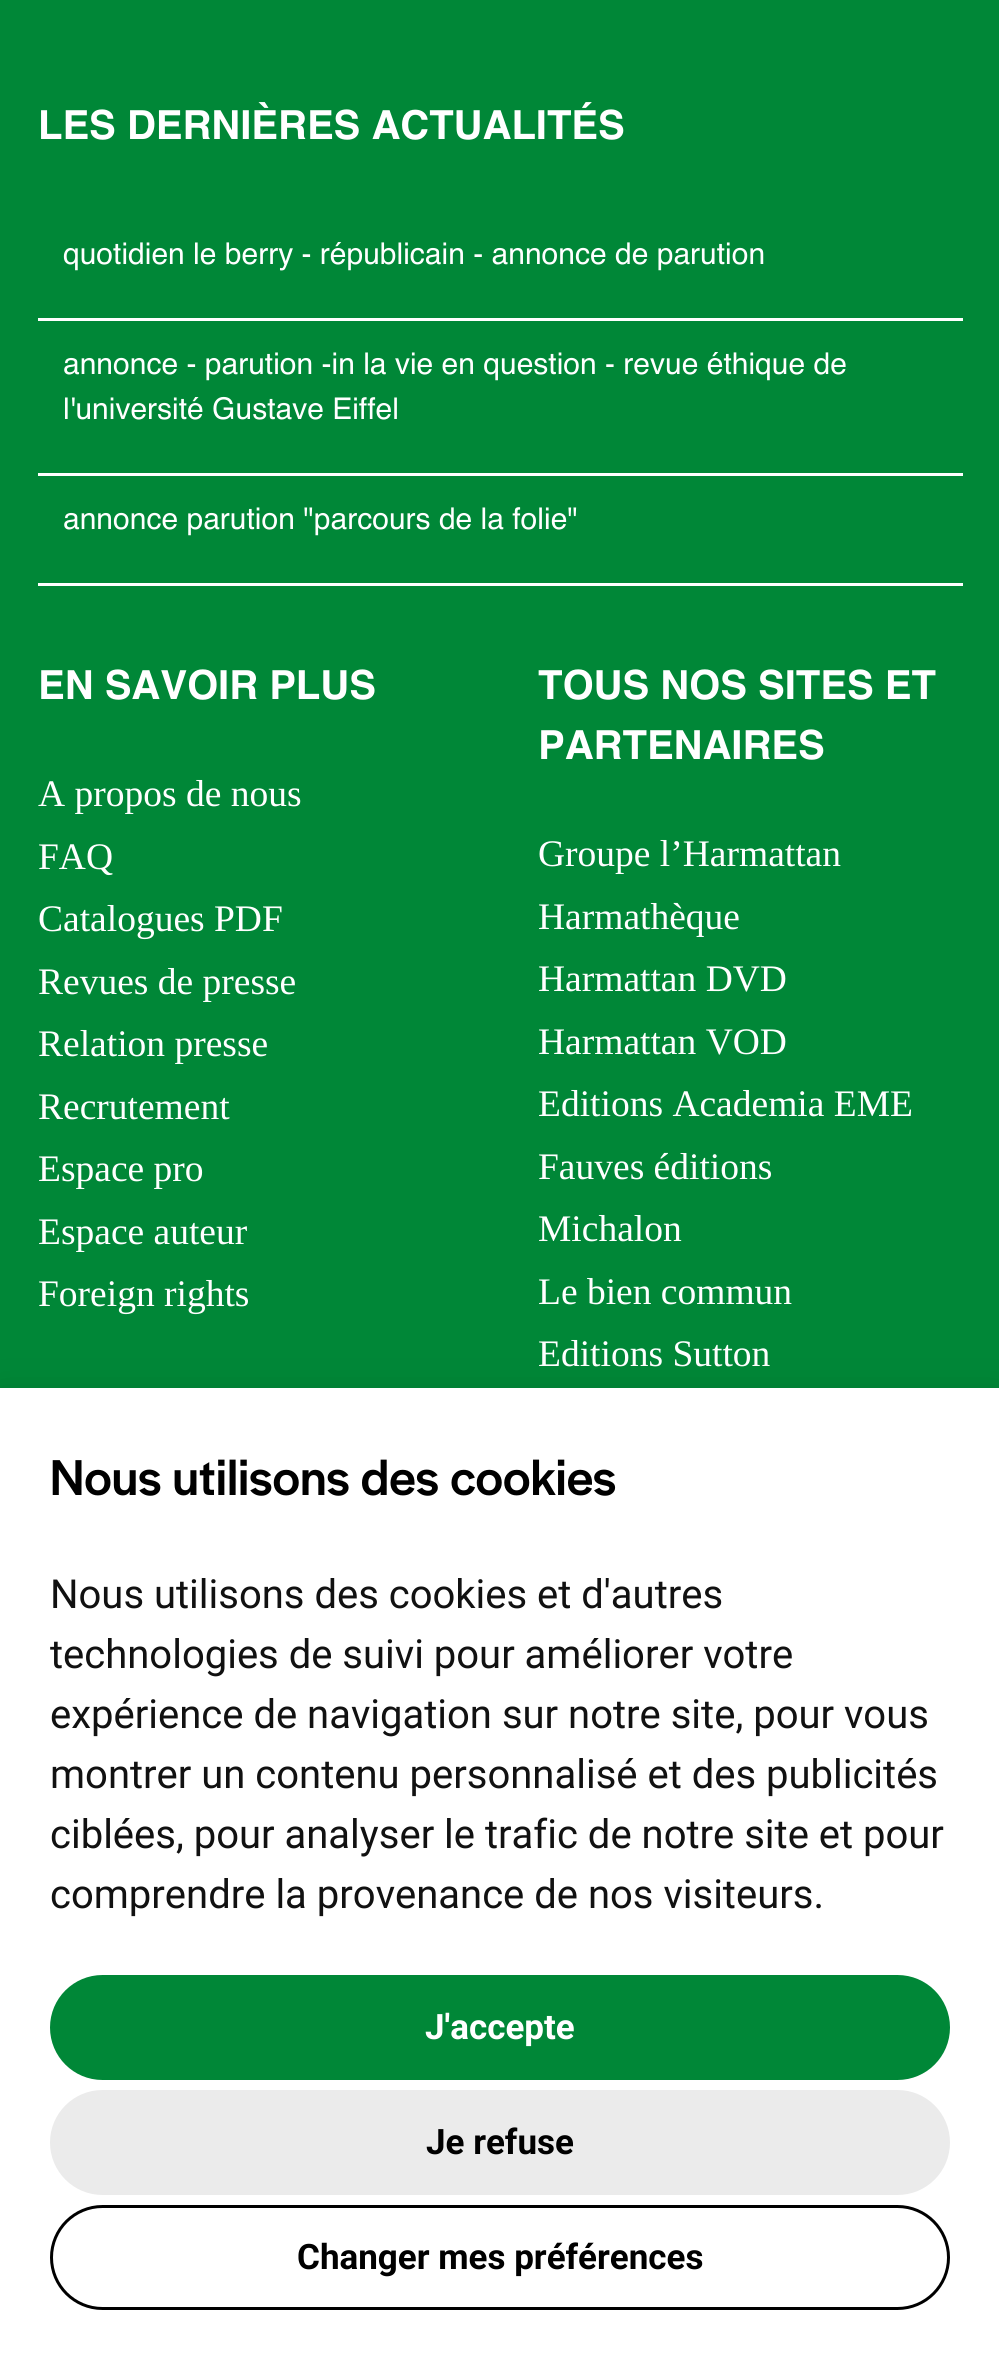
#include <cairo.h>
#include <math.h>
#include <stddef.h>

typedef struct { const char *family; double size; int italic, bold; unsigned color; } style_t;
static cairo_t *ctx;

static void ink(unsigned color) {
    cairo_set_source_rgb(ctx, (color >> 16) / 255.0, (color >> 8 & 255) / 255.0, (color & 255) / 255.0);
}

static void write(double x, double y, const char *s, const style_t *st) {
    cairo_select_font_face(ctx, st->family, st->italic ? CAIRO_FONT_SLANT_ITALIC : CAIRO_FONT_SLANT_NORMAL,
        st->bold ? CAIRO_FONT_WEIGHT_BOLD : CAIRO_FONT_WEIGHT_NORMAL);
    cairo_set_font_size(ctx, st->size);
    ink(st->color);
    cairo_move_to(ctx, x, y);
    cairo_show_text(ctx, s);
}

static void block(double x, double y, double w, double h, unsigned color) {
    ink(color);
    cairo_rectangle(ctx, x, y, w, h);
    cairo_fill(ctx);
}

static void round_path(double x, double y, double w, double h, double r) {
    cairo_new_sub_path(ctx);
    cairo_arc(ctx, x + w - r, y + h - r, r, 0, M_PI / 2);
    cairo_arc(ctx, x + r, y + h - r, r, M_PI / 2, M_PI);
    cairo_arc(ctx, x + r, y + r, r, M_PI, 1.5 * M_PI);
    cairo_arc(ctx, x + w - r, y + r, r, 1.5 * M_PI, 2 * M_PI);
    cairo_close_path(ctx);
}

static void blur_box(double x, double y, double w, double h, double r, double blur, double alpha) {
    cairo_push_group_with_content(ctx, CAIRO_CONTENT_ALPHA);
    cairo_set_operator(ctx, CAIRO_OPERATOR_SOURCE);
    for (int i = 15; i >= -15 && fmin(w, h) + blur * i / 3 > 0; i -= 2) {
        double e = blur * i / 6;
        cairo_set_source_rgba(ctx, 0, 0, 0, alpha * erfc((i - 1) / 8.5) / 2);
        round_path(x - e, y - e, w + 2 * e, h + 2 * e, fmax(0, fmin(r + e + blur * .6, fmin(w, h) / 2 + e)));
        cairo_fill(ctx);
    }
    cairo_pattern_t *soft = cairo_pop_group(ctx);
    cairo_mask(ctx, soft);
    cairo_pattern_destroy(soft);
}

static const style_t s1 = {"Helvetica", 40, 0, 1, 0xffffff};
static const style_t s2 = {"Helvetica", 30, 0, 0, 0xffffff};
static const style_t s3 = {"Liberation Serif", 37.5, 0, 0, 0xffffff};
static const style_t s4 = {"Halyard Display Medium", 52.5, 0, 0, 0x000000};
static const style_t s5 = {"Roboto", 40, 0, 0, 0x111111};
static const style_t s6 = {"Roboto", 35, 0, 1, 0xffffff};
static const style_t s7 = {"Roboto", 35, 0, 1, 0x000000};

int main(void) {
    cairo_surface_t *surface = cairo_image_surface_create(CAIRO_FORMAT_RGB24, 999, 2369);
    ctx = cairo_create(surface);
    cairo_font_options_t *options = cairo_font_options_create();
    cairo_font_options_set_hint_metrics(options, CAIRO_HINT_METRICS_OFF);
    cairo_font_options_set_hint_style(options, CAIRO_HINT_STYLE_NONE);
    cairo_set_font_options(ctx, options);
    cairo_set_miter_limit(ctx, 4);
    ink(0x008737);
    cairo_paint(ctx);
    write(38, 139, "LES DERNIÈRES ACTUALITÉS", &s1);
    block(38, 318, 925, 3, 0xffffff);
    write(63, 264, "quotidien le berry - républicain - annonce de parution", &s2);
    block(38, 473, 925, 3, 0xffffff);
    write(63, 374, "annonce - parution -in la vie en question - revue éthique de", &s2);
    write(63, 419, "l'université Gustave Eiffel", &s2);
    block(38, 583, 925, 3, 0xffffff);
    write(63, 529, "annonce parution \"parcours de la folie\"", &s2);
    write(38, 699, "EN SAVOIR PLUS", &s1);
    write(38, 806, "A propos de nous", &s3);
    write(38, 869, "FAQ", &s3);
    write(38, 931, "Catalogues PDF", &s3);
    write(38, 994, "Revues de presse", &s3);
    write(38, 1056, "Relation presse", &s3);
    write(38, 1119, "Recrutement", &s3);
    write(38, 1181, "Espace pro", &s3);
    write(38, 1244, "Espace auteur", &s3);
    write(38, 1306, "Foreign rights", &s3);
    write(538, 699, "TOUS NOS SITES ET", &s1);
    write(538, 759, "PARTENAIRES", &s1);
    write(538, 866, "Groupe l’Harmattan", &s3);
    write(538, 929, "Harmathèque", &s3);
    write(538, 991, "Harmattan DVD", &s3);
    write(538, 1054, "Harmattan VOD", &s3);
    write(538, 1116, "Editions Academia EME", &s3);
    write(538, 1179, "Fauves éditions", &s3);
    write(538, 1241, "Michalon", &s3);
    write(538, 1304, "Le bien commun", &s3);
    write(538, 1366, "Editions Sutton", &s3);
    ink(0x000000);
    blur_box(0, 1393, 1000, 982, 0, 19, 0.12);
    block(0, 1388, 999, 981, 0xffffff);
    write(50, 1495, "Nous utilisons des cookies", &s4);
    write(50, 1608, "Nous utilisons des cookies et d'autres", &s5);
    write(50, 1668, "technologies de suivi pour améliorer votre", &s5);
    write(50, 1728, "expérience de navigation sur notre site, pour vous", &s5);
    write(50, 1788, "montrer un contenu personnalisé et des publicités", &s5);
    write(50, 1848, "ciblées, pour analyser le trafic de notre site et pour", &s5);
    write(50, 1908, "comprendre la provenance de nos visiteurs.", &s5);
    ink(0x008737);
    round_path(50, 1975, 900, 105, 52.5);
    cairo_fill(ctx);
    write(425, 2039, "J'accepte", &s6);
    ink(0xebebeb);
    round_path(50, 2090, 900, 105, 52.5);
    cairo_fill(ctx);
    write(426, 2154, "Je refuse", &s7);
    round_path(51.5, 2206.5, 897, 102, 51);
    cairo_set_line_width(ctx, 3);
    cairo_stroke(ctx);
    write(297, 2269, "Changer mes préférences", &s7);
    cairo_surface_write_to_png(surface, "screenshot.png");
    cairo_font_options_destroy(options);
    cairo_destroy(ctx);
    cairo_surface_destroy(surface);
    return 0;
}
